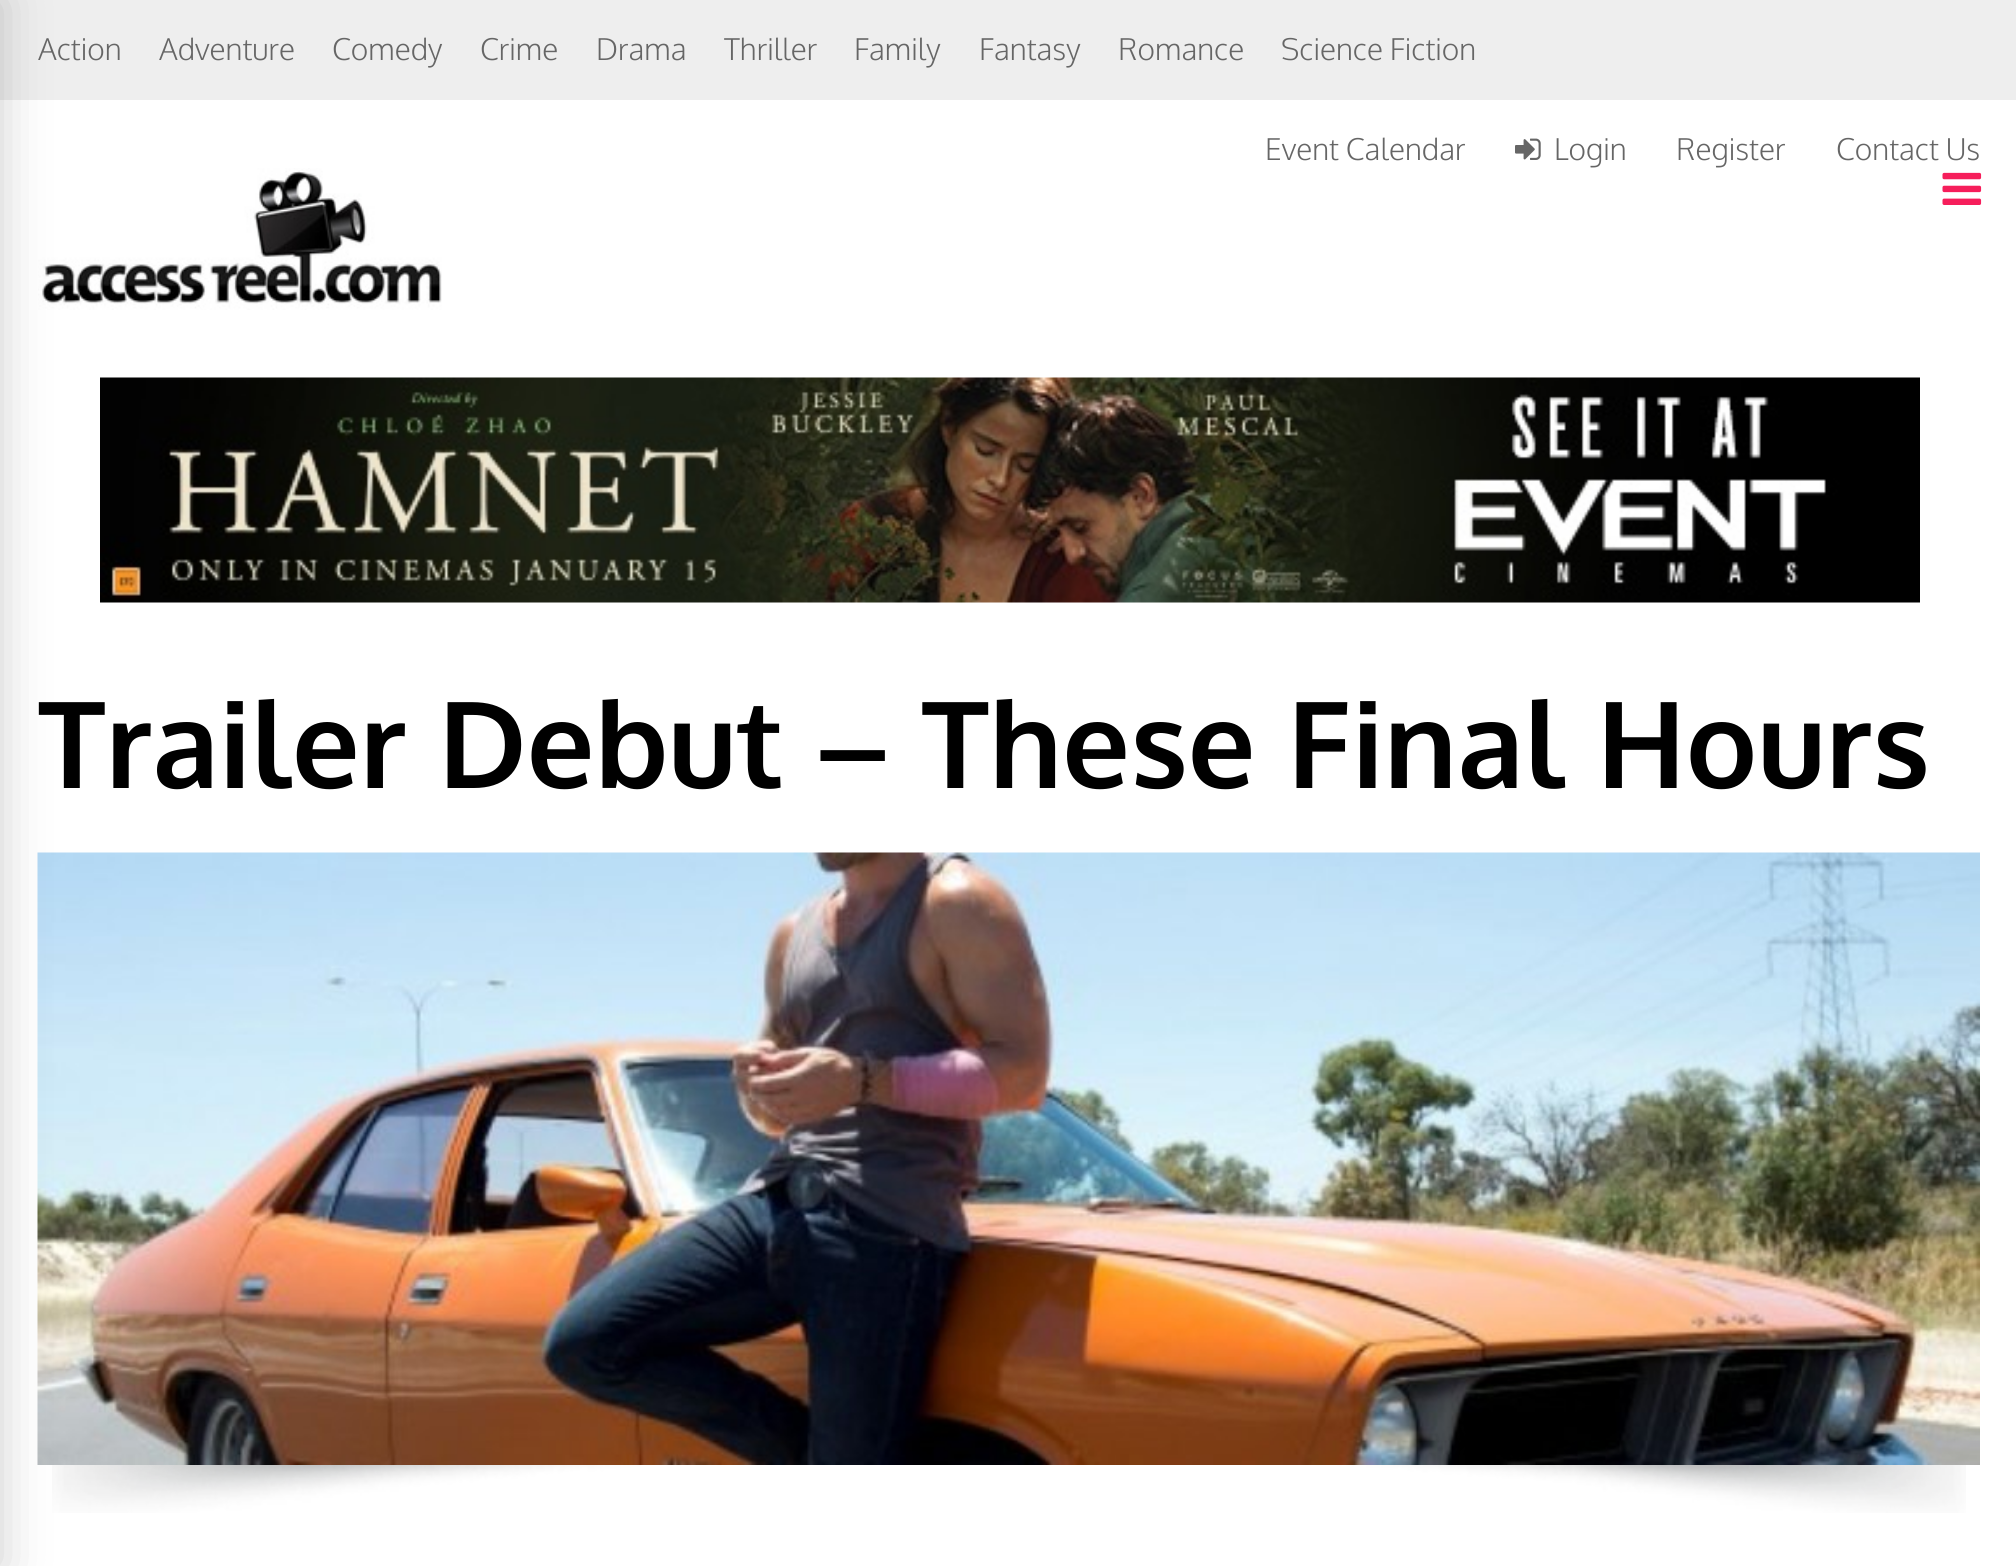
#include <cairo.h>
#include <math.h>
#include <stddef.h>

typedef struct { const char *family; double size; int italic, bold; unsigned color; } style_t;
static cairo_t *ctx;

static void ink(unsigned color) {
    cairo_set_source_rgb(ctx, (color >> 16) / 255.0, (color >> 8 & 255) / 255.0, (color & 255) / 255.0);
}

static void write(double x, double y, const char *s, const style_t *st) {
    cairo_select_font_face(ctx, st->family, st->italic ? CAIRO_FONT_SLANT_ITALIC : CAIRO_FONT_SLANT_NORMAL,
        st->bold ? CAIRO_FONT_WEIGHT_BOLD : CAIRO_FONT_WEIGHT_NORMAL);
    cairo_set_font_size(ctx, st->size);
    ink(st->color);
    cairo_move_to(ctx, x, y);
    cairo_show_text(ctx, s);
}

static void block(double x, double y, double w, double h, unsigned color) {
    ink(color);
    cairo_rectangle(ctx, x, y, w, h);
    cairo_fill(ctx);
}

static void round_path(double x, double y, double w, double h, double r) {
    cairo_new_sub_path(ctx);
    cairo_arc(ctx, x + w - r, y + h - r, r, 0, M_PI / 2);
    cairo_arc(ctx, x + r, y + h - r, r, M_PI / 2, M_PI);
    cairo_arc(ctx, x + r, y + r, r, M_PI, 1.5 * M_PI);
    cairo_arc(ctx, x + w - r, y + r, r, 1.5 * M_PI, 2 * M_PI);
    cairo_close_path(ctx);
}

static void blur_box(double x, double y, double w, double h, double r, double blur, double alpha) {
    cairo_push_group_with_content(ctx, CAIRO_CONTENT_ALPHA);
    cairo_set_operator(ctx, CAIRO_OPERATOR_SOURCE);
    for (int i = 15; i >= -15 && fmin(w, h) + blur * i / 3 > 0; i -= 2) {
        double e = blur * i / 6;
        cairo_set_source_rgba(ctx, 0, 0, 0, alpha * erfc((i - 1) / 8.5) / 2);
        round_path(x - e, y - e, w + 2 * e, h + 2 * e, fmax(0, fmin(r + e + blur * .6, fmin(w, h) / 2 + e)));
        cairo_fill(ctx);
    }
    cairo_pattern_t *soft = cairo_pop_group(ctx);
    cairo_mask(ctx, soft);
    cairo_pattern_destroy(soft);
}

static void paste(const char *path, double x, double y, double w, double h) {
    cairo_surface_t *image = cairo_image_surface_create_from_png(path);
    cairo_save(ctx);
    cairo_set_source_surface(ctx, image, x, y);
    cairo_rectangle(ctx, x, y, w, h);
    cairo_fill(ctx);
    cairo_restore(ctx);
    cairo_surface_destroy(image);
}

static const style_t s1 = {"Oxygen Light", 30, 0, 0, 0x666666};
static const style_t s2 = {"Oxygen", 120, 0, 1, 0x000000};

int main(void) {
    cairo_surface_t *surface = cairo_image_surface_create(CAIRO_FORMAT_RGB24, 2016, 1566);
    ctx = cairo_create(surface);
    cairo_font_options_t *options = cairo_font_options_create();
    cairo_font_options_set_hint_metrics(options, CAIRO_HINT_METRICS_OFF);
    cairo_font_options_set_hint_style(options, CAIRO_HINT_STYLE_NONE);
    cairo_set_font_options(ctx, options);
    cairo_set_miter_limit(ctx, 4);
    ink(0xffffff);
    cairo_paint(ctx);
    block(0, 0, 2016, 100, 0xeeeeee);
    paste("pic2.png", 38, 168, 404, 142);
    paste("pic5.png", 52, 1465, 1914, 48);
    paste("pic6.png", 37, 852, 1943, 613);
    ink(0x000000);
    blur_box(-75, 0, 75, 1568, 0, 25, 0.2);
    write(38, 60, "Action", &s1);
    write(159, 60, "Adventure", &s1);
    write(332, 60, "Comedy", &s1);
    write(480, 60, "Crime", &s1);
    write(596, 60, "Drama", &s1);
    write(724, 60, "Thriller", &s1);
    write(854, 60, "Family", &s1);
    write(979, 60, "Fantasy", &s1);
    write(1118, 60, "Romance", &s1);
    write(1281, 60, "Science Fiction", &s1);
    write(1265, 160, "Event Calendar", &s1);
    paste("pic1.png", 1515, 138, 26, 22);
    write(1554, 160, "Login", &s1);
    write(1676, 160, "Register", &s1);
    write(1836, 160, "Contact Us", &s1);
    paste("pic3.png", 1942, 172, 40, 33);
    paste("pic4.png", 100, 377, 1820, 226);
    write(38, 788, "Trailer Debut – These Final Hours", &s2);
    cairo_surface_write_to_png(surface, "screenshot.png");
    cairo_font_options_destroy(options);
    cairo_destroy(ctx);
    cairo_surface_destroy(surface);
    return 0;
}
